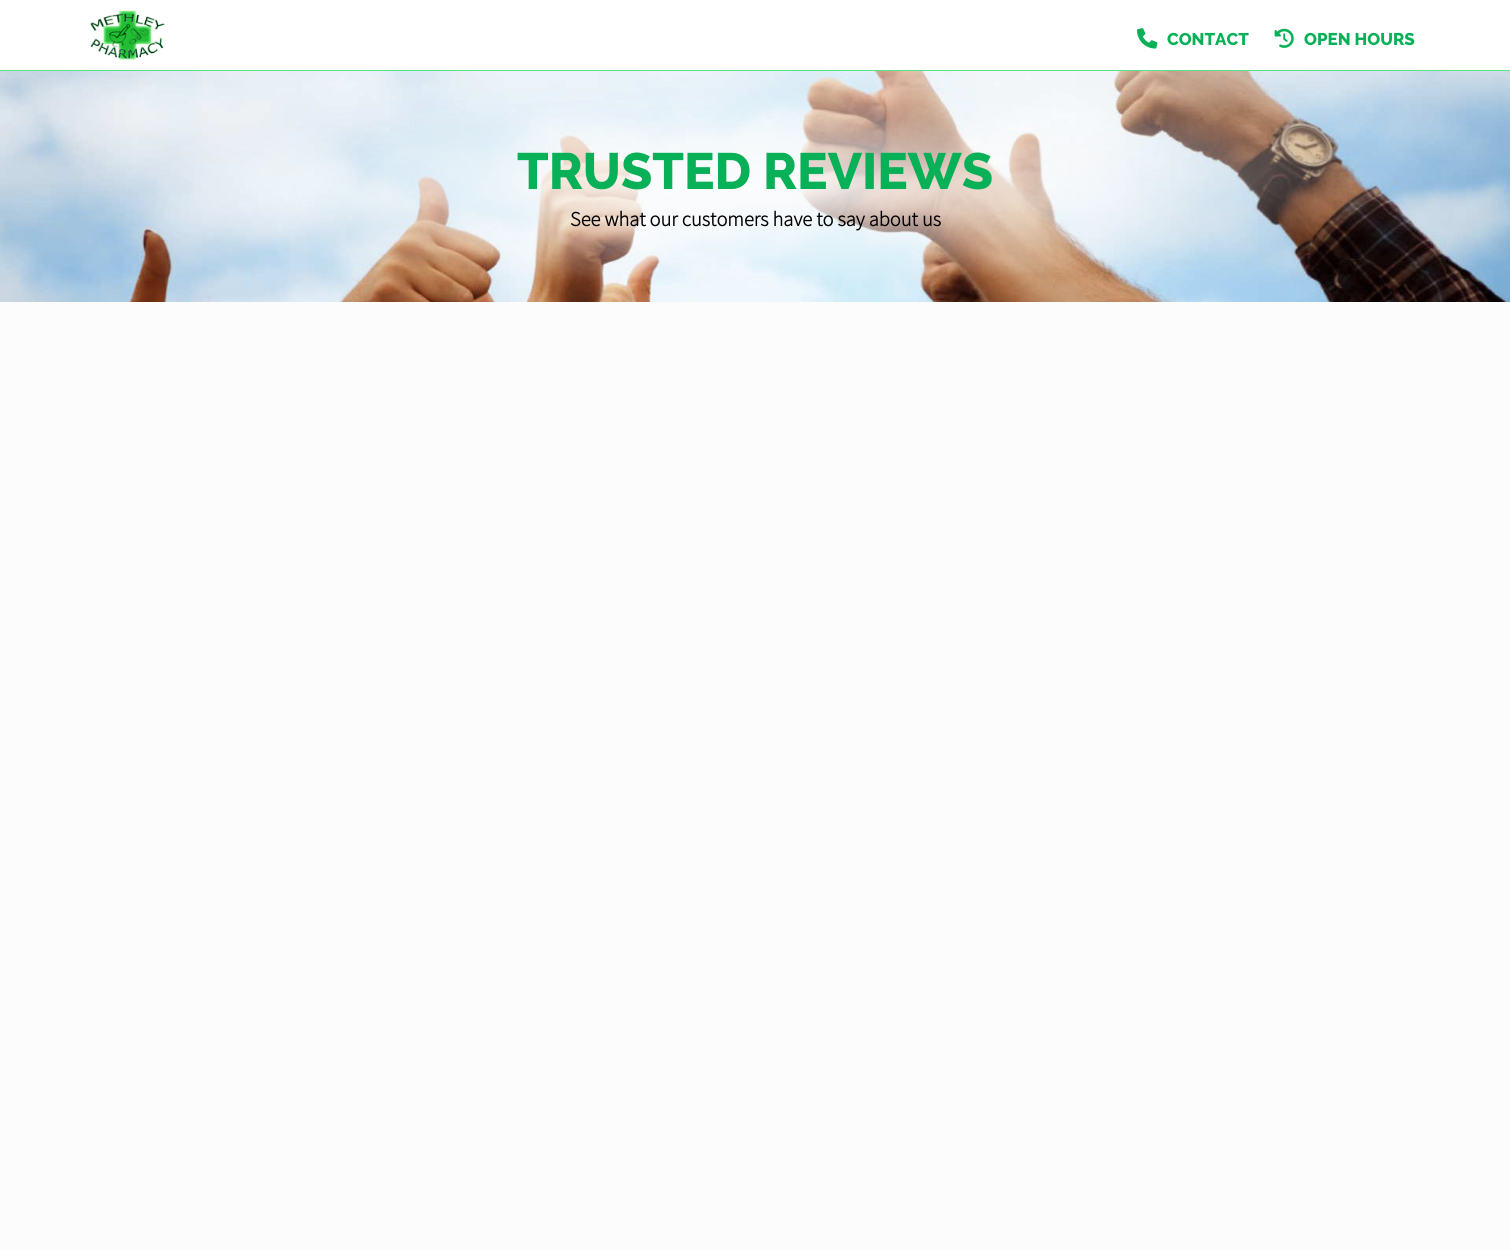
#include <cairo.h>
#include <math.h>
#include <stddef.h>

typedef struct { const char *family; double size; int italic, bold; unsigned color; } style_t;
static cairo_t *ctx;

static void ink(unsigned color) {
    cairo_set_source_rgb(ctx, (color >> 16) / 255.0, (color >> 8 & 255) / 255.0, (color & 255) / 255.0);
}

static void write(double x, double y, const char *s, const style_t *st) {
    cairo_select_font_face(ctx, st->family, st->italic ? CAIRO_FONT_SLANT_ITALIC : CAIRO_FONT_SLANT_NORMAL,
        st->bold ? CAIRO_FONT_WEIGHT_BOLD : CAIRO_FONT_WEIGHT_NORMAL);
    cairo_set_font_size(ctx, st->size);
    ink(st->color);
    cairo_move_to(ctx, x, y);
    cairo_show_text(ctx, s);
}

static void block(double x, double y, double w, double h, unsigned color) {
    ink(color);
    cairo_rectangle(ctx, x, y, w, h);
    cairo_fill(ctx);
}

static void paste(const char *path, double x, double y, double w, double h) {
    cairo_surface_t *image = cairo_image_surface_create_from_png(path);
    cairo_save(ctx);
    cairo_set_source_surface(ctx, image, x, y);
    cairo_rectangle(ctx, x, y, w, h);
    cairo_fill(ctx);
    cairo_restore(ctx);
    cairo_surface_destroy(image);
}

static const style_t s1 = {"Raleway ExtraBold", 17, 0, 0, 0x08b058};
static const style_t s2 = {"Raleway ExtraBold", 51, 0, 0, 0x08b058};
static const style_t s3 = {"Source Sans Pro", 20.4, 0, 1, 0x000000};

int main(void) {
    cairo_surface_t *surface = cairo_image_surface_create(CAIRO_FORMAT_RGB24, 1510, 1250);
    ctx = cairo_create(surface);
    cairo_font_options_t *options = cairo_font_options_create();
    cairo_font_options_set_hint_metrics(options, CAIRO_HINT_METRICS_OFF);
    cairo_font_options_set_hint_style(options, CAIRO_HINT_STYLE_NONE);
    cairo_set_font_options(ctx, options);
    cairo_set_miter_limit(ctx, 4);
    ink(0xfcfcfc);
    cairo_paint(ctx);
    block(0, 0, 1510, 70, 0xffffff);
    block(0, 70, 1510, 1, 0x59e386);
    paste("pic1.png", 90, 10, 75, 50);
    paste("pic2.png", 1137, 28, 21, 21);
    write(1167, 45, "CONTACT", &s1);
    paste("pic3.png", 1274, 28, 20, 20);
    write(1304, 45, "OPEN HOURS", &s1);
    paste("pic4.png", 0, 71, 1510, 231);
    write(517, 189, "TRUSTED REVIEWS", &s2);
    write(570, 226, "See what our customers have to say about us", &s3);
    cairo_surface_write_to_png(surface, "screenshot.png");
    cairo_font_options_destroy(options);
    cairo_destroy(ctx);
    cairo_surface_destroy(surface);
    return 0;
}
